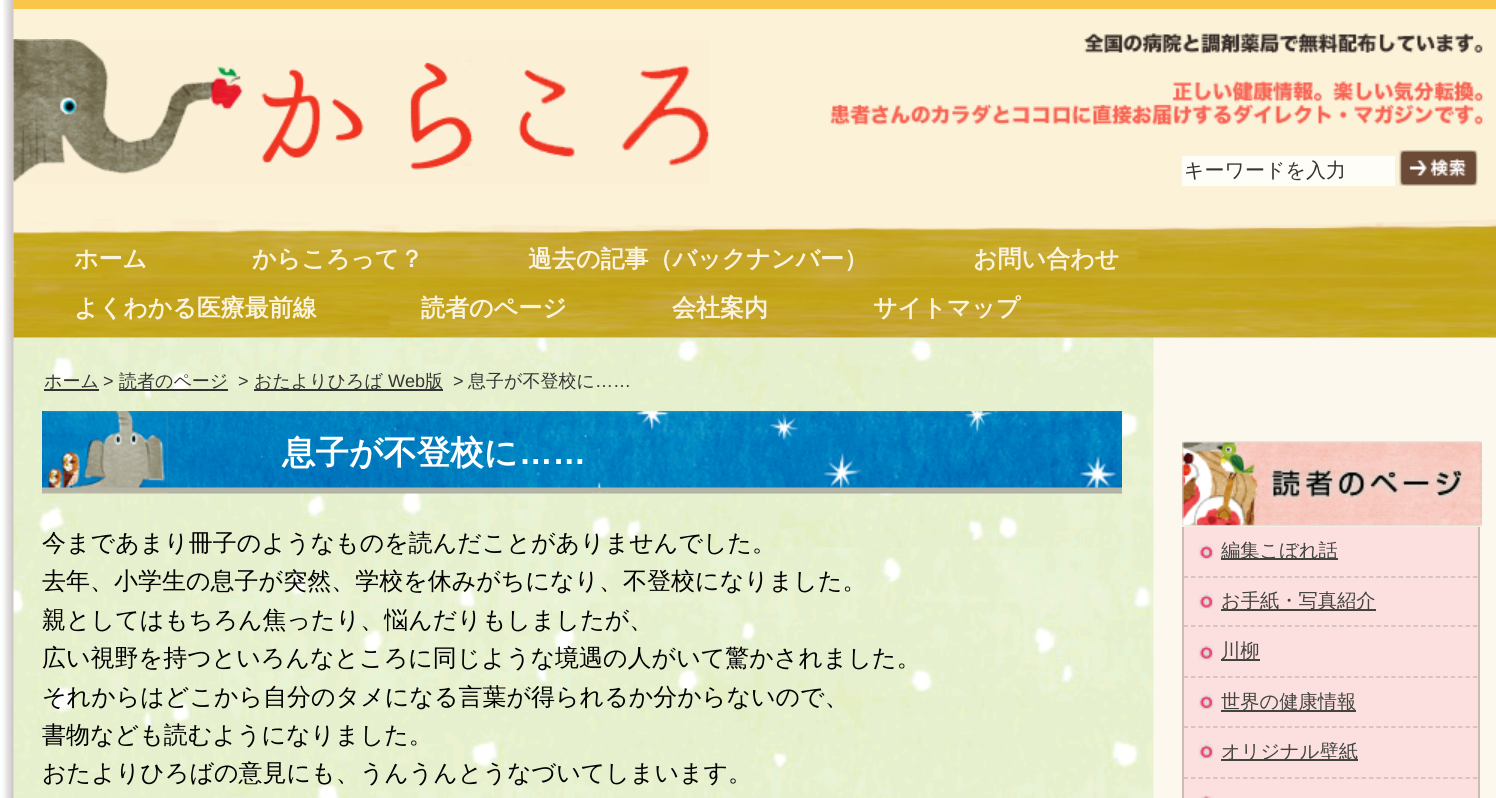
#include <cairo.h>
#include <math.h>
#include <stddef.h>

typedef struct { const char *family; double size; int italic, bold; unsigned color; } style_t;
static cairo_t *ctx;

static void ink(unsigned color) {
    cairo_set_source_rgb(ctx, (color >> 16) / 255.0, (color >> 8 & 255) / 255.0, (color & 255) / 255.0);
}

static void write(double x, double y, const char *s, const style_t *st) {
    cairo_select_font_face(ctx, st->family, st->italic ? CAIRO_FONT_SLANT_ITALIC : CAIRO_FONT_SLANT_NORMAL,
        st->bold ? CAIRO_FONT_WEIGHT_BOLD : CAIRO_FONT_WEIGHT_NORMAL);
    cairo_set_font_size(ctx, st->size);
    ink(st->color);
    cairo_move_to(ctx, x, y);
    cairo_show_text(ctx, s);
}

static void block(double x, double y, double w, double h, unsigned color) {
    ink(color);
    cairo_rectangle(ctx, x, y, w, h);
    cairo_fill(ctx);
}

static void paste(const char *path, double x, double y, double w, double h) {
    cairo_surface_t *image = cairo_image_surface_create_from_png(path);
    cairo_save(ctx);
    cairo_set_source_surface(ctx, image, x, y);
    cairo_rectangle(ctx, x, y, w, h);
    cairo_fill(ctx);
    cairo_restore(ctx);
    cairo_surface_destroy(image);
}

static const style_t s1 = {"WenQuanYi Zen Hei Medium", 20, 0, 0, 0x333333};
static const style_t s2 = {"WenQuanYi Zen Hei", 24, 0, 1, 0xfaf3df};
static const style_t s3 = {"WenQuanYi Zen Hei Medium", 18, 0, 0, 0x333333};
static const style_t s4 = {"Liberation Sans", 18, 0, 0, 0x333333};
static const style_t s5 = {"WenQuanYi Zen Hei", 33.5, 0, 1, 0xffffff};
static const style_t s6 = {"Liberation Sans", 33.5, 0, 1, 0xffffff};
static const style_t s7 = {"WenQuanYi Zen Hei Medium", 24, 0, 0, 0x000000};
static const style_t s8 = {"WenQuanYi Zen Hei Medium", 19.25, 0, 0, 0x42443f};

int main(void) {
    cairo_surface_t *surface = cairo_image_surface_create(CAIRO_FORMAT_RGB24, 1496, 798);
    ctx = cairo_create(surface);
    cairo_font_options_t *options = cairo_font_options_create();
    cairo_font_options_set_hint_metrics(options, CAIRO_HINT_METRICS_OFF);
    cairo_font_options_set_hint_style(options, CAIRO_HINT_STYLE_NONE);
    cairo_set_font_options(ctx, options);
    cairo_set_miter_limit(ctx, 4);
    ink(0xffffff);
    cairo_paint(ctx);
    paste("pic1.png", 2, 337, 1494, 461);
    paste("pic2.png", 2, 0, 1494, 9);
    paste("pic3.png", 2, 9, 1494, 329);
    paste("pic4.png", 13, 39, 697, 144);
    paste("pic5.png", 829, 33, 655, 92);
    block(1182, 156, 213, 30, 0xfffdf8);
    write(1184, 177, "キーワードを入力", &s1);
    paste("pic6.png", 1399, 150, 79, 36);
    paste("pic7.png", 13, 219, 1483, 119);
    write(74, 267, "ホーム", &s2);
    write(252, 267, "からころって？", &s2);
    write(528, 267, "過去の記事（バックナンバー）", &s2);
    write(973, 267, "お問い合わせ", &s2);
    write(74, 316, "よくわかる医療最前線", &s2);
    write(421, 316, "読者のページ", &s2);
    write(672, 316, "会社案内", &s2);
    write(873, 316, "サイトマップ", &s2);
    write(44, 387, "ホーム", &s3);
    block(44, 389, 55, 2, 0x333333);
    write(103, 387, ">", &s4);
    block(119, 389, 109, 2, 0x333333);
    write(119, 387, "読者のページ", &s3);
    write(238, 387, ">", &s4);
    block(254, 389, 189, 2, 0x333333);
    write(254, 387, "おたよりひろば", &s3);
    write(388, 387, "Web", &s4);
    write(425, 387, "版", &s3);
    write(453, 387, ">", &s4);
    write(468, 387, "息子が不登校に", &s3);
    write(595, 387, "……", &s4);
    paste("pic8.png", 42, 411, 1080, 83);
    write(282, 464, "息子が不登校に", &s5);
    write(519, 464, "……", &s6);
    write(42, 551, "今まであまり冊子のようなものを読んだことがありませんでした。", &s7);
    write(42, 589, "去年、小学生の息子が突然、学校を休みがちになり、不登校になりました。", &s7);
    write(42, 628, "親としてはもちろん焦ったり、悩んだりもしましたが、", &s7);
    write(42, 666, "広い視野を持つといろんなところに同じような境遇の人がいて驚かされました。", &s7);
    write(42, 705, "それからはどこから自分のタメになる言葉が得られるか分からないので、", &s7);
    write(42, 743, "書物なども読むようになりました。", &s7);
    write(42, 781, "おたよりひろばの意見にも、うんうんとうなづいてしまいます。", &s7);
    paste("pic9.png", 1182, 441, 300, 86);
    block(1184, 527, 294, 271, 0xfce0df);
    block(1478, 527, 2, 271, 0xcabbb6);
    block(1182, 527, 2, 271, 0xcabbb6);
    paste("pic10.png", 1198, 544, 16, 16);
    cairo_new_path(ctx);
    cairo_move_to(ctx, 1183.5, 577);
    cairo_line_to(ctx, 1477.5, 577);
    cairo_set_line_width(ctx, 1.5);
    cairo_set_dash(ctx, (double[]){4.5, 2.92}, 2, 0);
    cairo_stroke(ctx);
    block(1221, 558, 117, 2, 0x42443f);
    write(1221, 557, "編集こぼれ話", &s8);
    paste("pic11.png", 1198, 594, 16, 15);
    cairo_new_path(ctx);
    cairo_move_to(ctx, 1183.5, 626);
    cairo_line_to(ctx, 1477.5, 626);
    ink(0xcabbb6);
    cairo_stroke(ctx);
    block(1221, 609, 155, 2, 0x42443f);
    write(1221, 607, "お手紙・写真紹介", &s8);
    paste("pic11.png", 1198, 645, 16, 15);
    cairo_new_path(ctx);
    cairo_move_to(ctx, 1183.5, 677);
    cairo_line_to(ctx, 1477.5, 677);
    ink(0xcabbb6);
    cairo_stroke(ctx);
    block(1221, 659, 39, 2, 0x42443f);
    write(1221, 657, "川柳", &s8);
    paste("pic10.png", 1198, 694, 16, 16);
    cairo_new_path(ctx);
    cairo_move_to(ctx, 1183.5, 727);
    cairo_line_to(ctx, 1477.5, 727);
    ink(0xcabbb6);
    cairo_stroke(ctx);
    block(1221, 710, 135, 2, 0x42443f);
    write(1221, 708, "世界の健康情報", &s8);
    paste("pic11.png", 1198, 744, 16, 15);
    cairo_new_path(ctx);
    cairo_move_to(ctx, 1183.5, 778);
    cairo_line_to(ctx, 1477.5, 778);
    ink(0xcabbb6);
    cairo_stroke(ctx);
    block(1221, 759, 137, 2, 0x42443f);
    write(1221, 758, "オリジナル壁紙", &s8);
    paste("pic12.png", 1199, 795, 14, 3);
    cairo_surface_write_to_png(surface, "screenshot.png");
    cairo_font_options_destroy(options);
    cairo_destroy(ctx);
    cairo_surface_destroy(surface);
    return 0;
}
